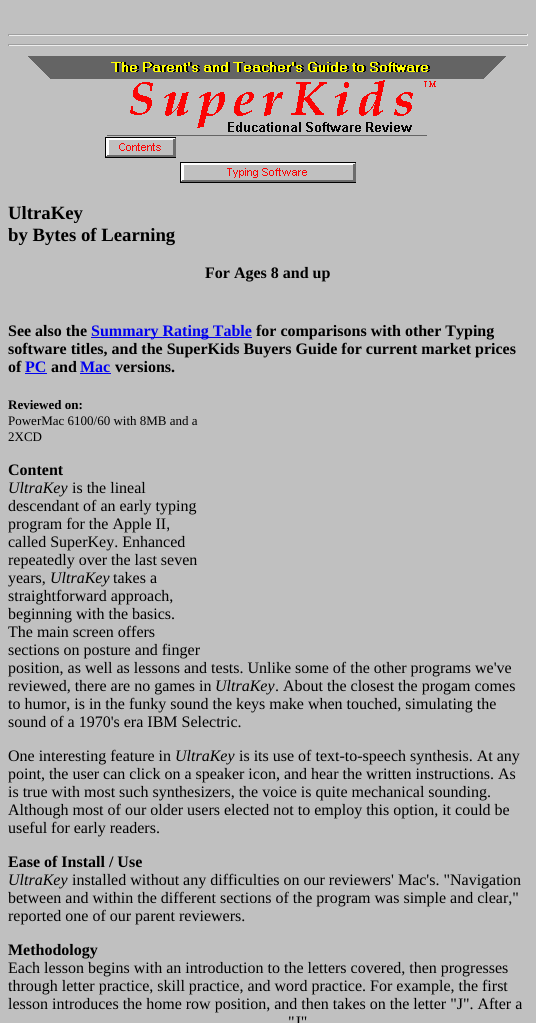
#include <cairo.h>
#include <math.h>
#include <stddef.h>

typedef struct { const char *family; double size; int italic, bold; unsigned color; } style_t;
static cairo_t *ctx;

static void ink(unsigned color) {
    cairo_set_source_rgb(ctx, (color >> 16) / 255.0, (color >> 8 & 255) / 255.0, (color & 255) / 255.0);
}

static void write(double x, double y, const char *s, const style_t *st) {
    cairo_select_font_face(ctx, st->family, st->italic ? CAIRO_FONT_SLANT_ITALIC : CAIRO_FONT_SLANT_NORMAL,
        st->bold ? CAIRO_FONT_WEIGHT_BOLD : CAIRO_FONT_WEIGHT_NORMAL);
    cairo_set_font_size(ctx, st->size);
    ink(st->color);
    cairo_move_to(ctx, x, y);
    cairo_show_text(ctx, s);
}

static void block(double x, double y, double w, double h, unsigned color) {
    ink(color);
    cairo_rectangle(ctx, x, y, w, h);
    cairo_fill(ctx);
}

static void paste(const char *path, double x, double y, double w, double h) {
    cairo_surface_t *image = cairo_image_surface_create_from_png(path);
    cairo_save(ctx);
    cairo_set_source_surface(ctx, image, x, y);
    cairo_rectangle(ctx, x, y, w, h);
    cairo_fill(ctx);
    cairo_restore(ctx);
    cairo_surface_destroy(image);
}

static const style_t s1 = {"Liberation Serif", 18.75, 0, 1, 0x000000};
static const style_t s2 = {"Liberation Serif", 16, 0, 1, 0x000000};
static const style_t s3 = {"Liberation Serif", 16, 0, 1, 0x0000ee};
static const style_t s4 = {"Liberation Serif", 13, 0, 1, 0x000000};
static const style_t s5 = {"Liberation Serif", 13, 0, 0, 0x000000};
static const style_t s6 = {"Liberation Serif", 16, 1, 0, 0x000000};
static const style_t s7 = {"Liberation Serif", 16, 0, 0, 0x000000};

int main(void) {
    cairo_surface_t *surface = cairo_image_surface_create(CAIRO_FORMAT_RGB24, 536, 1023);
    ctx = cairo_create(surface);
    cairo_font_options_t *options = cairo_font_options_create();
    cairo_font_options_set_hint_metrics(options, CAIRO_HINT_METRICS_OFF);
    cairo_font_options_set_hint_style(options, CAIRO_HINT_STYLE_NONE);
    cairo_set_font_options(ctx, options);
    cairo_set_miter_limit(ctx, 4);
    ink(0xc0c0c0);
    cairo_paint(ctx);
    block(8, 34, 520, 1, 0x9f9f9f);
    block(527, 34, 1, 2, 0xeeeeee);
    block(8, 35, 520, 1, 0xeeeeee);
    block(8, 34, 1, 2, 0x9f9f9f);
    block(8, 44, 520, 1, 0x9f9f9f);
    block(527, 44, 1, 2, 0xeeeeee);
    block(8, 45, 520, 1, 0xeeeeee);
    block(8, 44, 1, 2, 0x9f9f9f);
    paste("pic1.png", 28, 56, 478, 80);
    paste("pic2.png", 105, 137, 71, 21);
    paste("pic3.png", 180, 162, 176, 21);
    write(8, 219, "UltraKey", &s1);
    write(8, 241, "by Bytes of Learning", &s1);
    write(205, 278, "For Ages 8 and up", &s2);
    write(8, 336, "See also the", &s2);
    block(91, 337, 161, 1, 0x0000ee);
    write(91, 336, "Summary Rating Table", &s3);
    write(256, 336, "for comparisons with other Typing", &s2);
    write(8, 354, "software titles, and the SuperKids Buyers Guide for current market prices", &s2);
    write(8, 372, "of", &s2);
    write(25, 372, "PC", &s3);
    block(25, 373, 22, 1, 0x0000ee);
    write(51, 372, "and", &s2);
    write(80, 372, "Mac", &s3);
    block(80, 373, 31, 1, 0x0000ee);
    write(115, 372, "versions.", &s2);
    write(8, 409, "Reviewed on:", &s4);
    write(8, 425, "PowerMac 6100/60 with 8MB and a", &s5);
    write(8, 441, "2XCD", &s5);
    write(8, 475, "Content", &s2);
    write(8, 493, "UltraKey", &s6);
    write(72, 493, "is the lineal", &s7);
    write(8, 511, "descendant of an early typing", &s7);
    write(8, 529, "program for the Apple II,", &s7);
    write(8, 547, "called SuperKey. Enhanced", &s7);
    write(8, 565, "repeatedly over the last seven", &s7);
    write(8, 583, "years,", &s7);
    write(50, 583, "UltraKey", &s6);
    write(113, 583, "takes a", &s7);
    write(8, 601, "straightforward approach,", &s7);
    write(8, 619, "beginning with the basics.", &s7);
    write(8, 637, "The main screen offers", &s7);
    write(8, 655, "sections on posture and finger", &s7);
    write(8, 673, "position, as well as lessons and tests. Unlike some of the other programs we've", &s7);
    write(8, 691, "reviewed, there are no games in", &s7);
    write(215, 691, "UltraKey", &s6);
    write(275, 691, ". About the closest the progam comes", &s7);
    write(8, 709, "to humor, is in the funky sound the keys make when touched, simulating the", &s7);
    write(8, 727, "sound of a 1970's era IBM Selectric.", &s7);
    write(8, 761, "One interesting feature in", &s7);
    write(175, 761, "UltraKey", &s6);
    write(239, 761, "is its use of text-to-speech synthesis. At any", &s7);
    write(8, 779, "point, the user can click on a speaker icon, and hear the written instructions. As", &s7);
    write(8, 797, "is true with most such synthesizers, the voice is quite mechanical sounding.", &s7);
    write(8, 815, "Although most of our older users elected not to employ this option, it could be", &s7);
    write(8, 833, "useful for early readers.", &s7);
    write(8, 867, "Ease of Install / Use", &s2);
    write(8, 885, "UltraKey", &s6);
    write(72, 885, "installed without any difficulties on our reviewers' Mac's. \"Navigation", &s7);
    write(8, 903, "between and within the different sections of the program was simple and clear,\"", &s7);
    write(8, 921, "reported one of our parent reviewers.", &s7);
    write(8, 955, "Methodology", &s2);
    write(8, 973, "Each lesson begins with an introduction to the letters covered, then progresses", &s7);
    write(8, 991, "through letter practice, skill practice, and word practice. For example, the first", &s7);
    write(8, 1009, "lesson introduces the home row position, and then takes on the letter \"J\". After a", &s7);
    write(288, 1027, "\"J\"", &s7);
    cairo_surface_write_to_png(surface, "screenshot.png");
    cairo_font_options_destroy(options);
    cairo_destroy(ctx);
    cairo_surface_destroy(surface);
    return 0;
}
